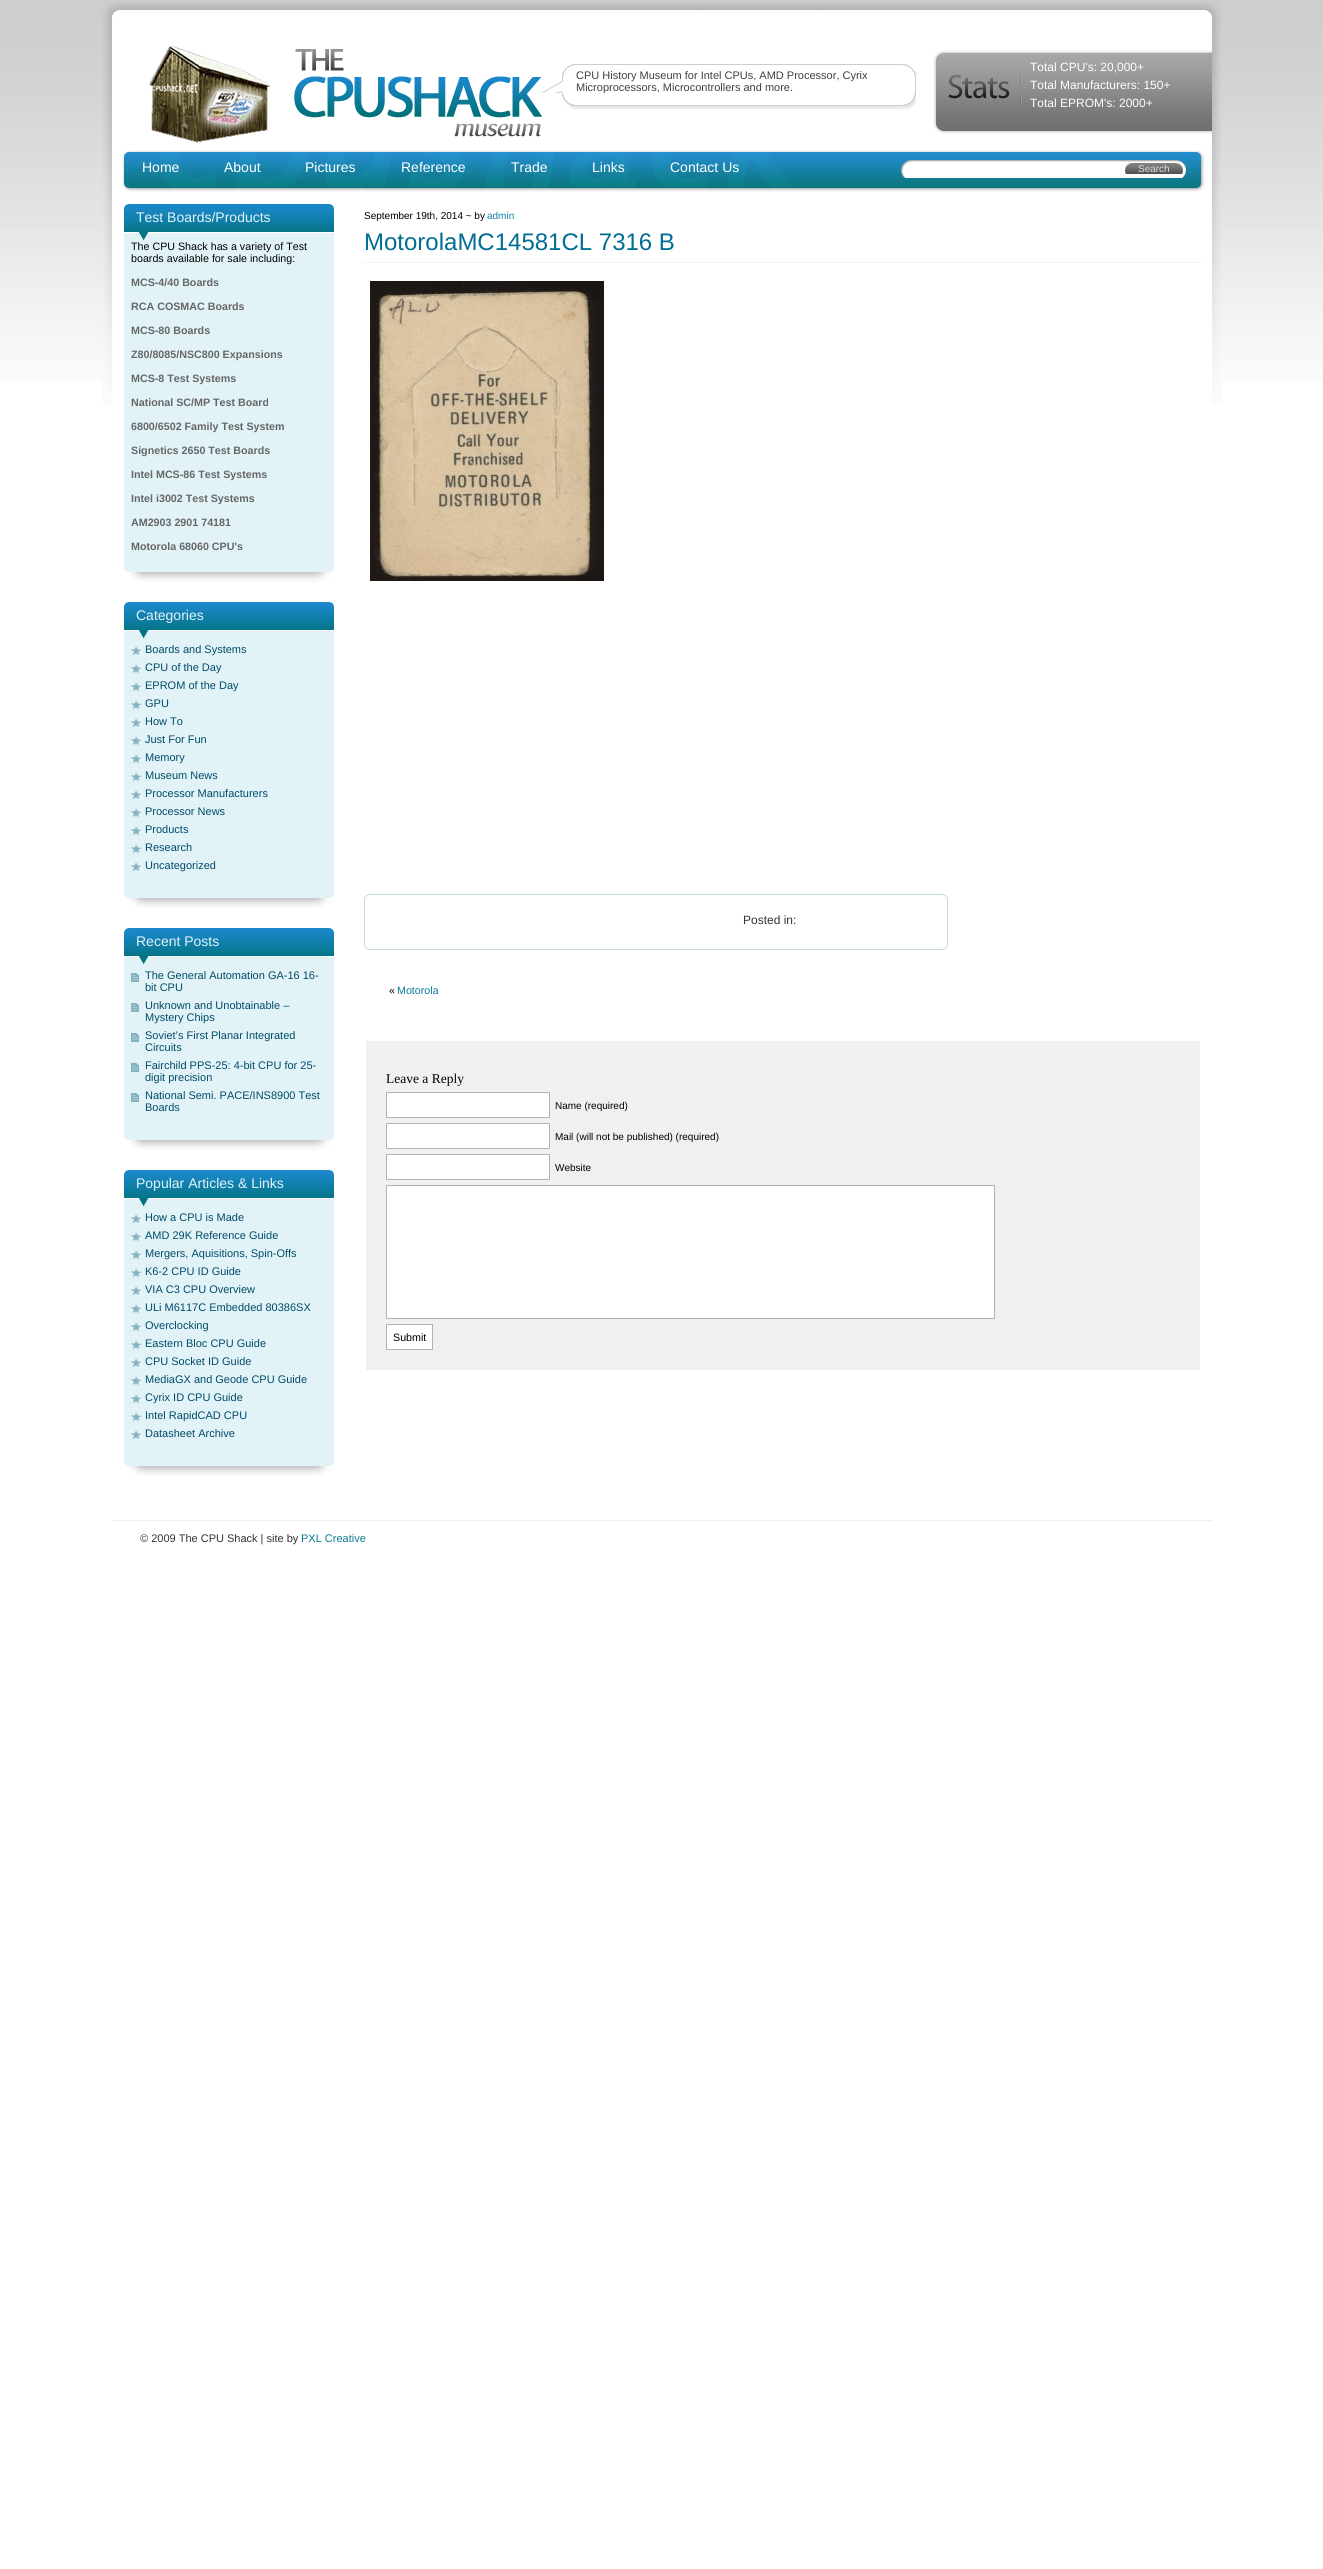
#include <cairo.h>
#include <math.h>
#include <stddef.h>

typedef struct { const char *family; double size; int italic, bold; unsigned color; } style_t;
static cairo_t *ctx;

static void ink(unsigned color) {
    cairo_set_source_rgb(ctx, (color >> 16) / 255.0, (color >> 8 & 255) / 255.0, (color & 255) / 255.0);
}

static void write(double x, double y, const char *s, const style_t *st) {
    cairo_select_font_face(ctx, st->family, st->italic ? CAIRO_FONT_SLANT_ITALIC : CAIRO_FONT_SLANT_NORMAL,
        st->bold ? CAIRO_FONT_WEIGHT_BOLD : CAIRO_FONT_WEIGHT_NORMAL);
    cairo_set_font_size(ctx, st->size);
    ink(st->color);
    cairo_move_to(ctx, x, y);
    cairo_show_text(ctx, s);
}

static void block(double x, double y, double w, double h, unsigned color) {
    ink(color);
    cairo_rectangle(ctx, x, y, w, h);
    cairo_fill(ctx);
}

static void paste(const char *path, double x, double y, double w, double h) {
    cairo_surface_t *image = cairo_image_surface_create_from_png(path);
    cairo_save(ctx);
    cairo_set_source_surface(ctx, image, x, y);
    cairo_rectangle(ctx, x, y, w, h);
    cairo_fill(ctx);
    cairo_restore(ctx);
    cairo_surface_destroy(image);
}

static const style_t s1 = {"Liberation Sans", 11, 0, 0, 0x404040};
static const style_t s2 = {"Liberation Sans", 12, 0, 0, 0xffffff};
static const style_t s3 = {"Liberation Sans", 14, 0, 0, 0xffffff};
static const style_t s4 = {"Liberation Sans", 10, 0, 0, 0xdddddd};
static const style_t s5 = {"Liberation Sans", 14, 0, 0, 0xe2f3f8};
static const style_t s6 = {"Liberation Sans", 10.7, 0, 0, 0x000000};
static const style_t s7 = {"Liberation Sans", 10.7, 0, 1, 0x666666};
static const style_t s8 = {"Liberation Sans", 11, 0, 0, 0x004a69};
static const style_t s9 = {"Liberation Sans", 10, 0, 0, 0x000000};
static const style_t s10 = {"Liberation Sans", 10, 0, 0, 0x1180ac};
static const style_t s11 = {"Liberation Sans", 24, 0, 0, 0x006d93};
static const style_t s12 = {"Liberation Sans", 12, 0, 0, 0x333333};
static const style_t s13 = {"Liberation Sans", 10.7, 0, 0, 0x0a7996};
static const style_t s14 = {"Liberation Serif", 13.5, 0, 0, 0x000000};
static const style_t s15 = {"Liberation Sans", 11, 0, 0, 0x333333};
static const style_t s16 = {"Liberation Sans", 11, 0, 0, 0x0a7996};

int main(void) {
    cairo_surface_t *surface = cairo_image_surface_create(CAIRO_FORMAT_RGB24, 1323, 2569);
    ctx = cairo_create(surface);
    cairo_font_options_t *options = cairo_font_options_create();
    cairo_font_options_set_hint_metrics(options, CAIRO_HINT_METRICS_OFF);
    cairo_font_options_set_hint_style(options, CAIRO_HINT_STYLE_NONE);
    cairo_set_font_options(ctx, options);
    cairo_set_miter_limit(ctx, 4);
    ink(0xffffff);
    cairo_paint(ctx);
    paste("pic1.png", 0, 0, 1323, 380);
    paste("pic2.png", 102, 1, 1120, 404);
    paste("pic3.png", 149, 46, 121, 97);
    paste("pic4.png", 294, 49, 248, 88);
    paste("pic5.png", 562, 93, 354, 17);
    paste("pic6.png", 541, 64, 375, 29);
    write(576, 79, "CPU History Museum for Intel CPUs, AMD Processor, Cyrix", &s1);
    write(576, 91, "Microprocessors, Microcontrollers and more.", &s1);
    paste("pic7.png", 933, 50, 279, 84);
    write(1030, 71, "Total CPU's: 20,000+", &s2);
    write(1030, 89, "Total Manufacturers: 150+", &s2);
    write(1030, 107, "Total EPROM's: 2000+", &s2);
    paste("pic8.png", 122, 150, 1083, 42);
    write(142, 172, "Home", &s3);
    write(224, 172, "About", &s3);
    write(305, 172, "Pictures", &s3);
    write(401, 172, "Reference", &s3);
    write(511, 172, "Trade", &s3);
    write(592, 172, "Links", &s3);
    write(670, 172, "Contact Us", &s3);
    paste("pic9.png", 901, 160, 285, 18);
    paste("pic10.png", 1125, 163, 58, 11);
    write(1138, 172, "Search", &s4);
    paste("pic11.png", 124, 241, 210, 341);
    paste("pic12.png", 124, 204, 210, 37);
    write(136, 222, "Test Boards/Products", &s5);
    write(131, 250, "The CPU Shack has a variety of Test", &s6);
    write(131, 262, "boards available for sale including:", &s6);
    write(131, 286, "MCS-4/40 Boards", &s7);
    write(131, 310, "RCA COSMAC Boards", &s7);
    write(131, 334, "MCS-80 Boards", &s7);
    write(131, 358, "Z80/8085/NSC800 Expansions", &s7);
    write(131, 382, "MCS-8 Test Systems", &s7);
    write(131, 406, "National SC/MP Test Board", &s7);
    write(131, 430, "6800/6502 Family Test System", &s7);
    write(131, 454, "Signetics 2650 Test Boards", &s7);
    write(131, 478, "Intel MCS-86 Test Systems", &s7);
    write(131, 502, "Intel i3002 Test Systems", &s7);
    write(131, 526, "AM2903 2901 74181", &s7);
    write(131, 550, "Motorola 68060 CPU's", &s7);
    paste("pic13.png", 124, 639, 210, 269);
    paste("pic12.png", 124, 602, 210, 37);
    write(136, 620, "Categories", &s5);
    paste("pic14.png", 131, 646, 11, 9);
    write(145, 653, "Boards and Systems", &s8);
    paste("pic14.png", 131, 664, 11, 9);
    write(145, 671, "CPU of the Day", &s8);
    paste("pic14.png", 131, 682, 11, 9);
    write(145, 689, "EPROM of the Day", &s8);
    paste("pic14.png", 131, 700, 11, 9);
    write(145, 707, "GPU", &s8);
    paste("pic14.png", 131, 718, 11, 9);
    write(145, 725, "How To", &s8);
    paste("pic14.png", 131, 736, 11, 9);
    write(145, 743, "Just For Fun", &s8);
    paste("pic14.png", 131, 754, 11, 9);
    write(145, 761, "Memory", &s8);
    paste("pic14.png", 131, 772, 11, 9);
    write(145, 779, "Museum News", &s8);
    paste("pic14.png", 131, 790, 11, 9);
    write(145, 797, "Processor Manufacturers", &s8);
    paste("pic14.png", 131, 808, 11, 9);
    write(145, 815, "Processor News", &s8);
    paste("pic14.png", 131, 826, 11, 9);
    write(145, 833, "Products", &s8);
    paste("pic14.png", 131, 844, 11, 9);
    write(145, 851, "Research", &s8);
    paste("pic14.png", 131, 862, 11, 9);
    write(145, 869, "Uncategorized", &s8);
    paste("pic15.png", 124, 965, 210, 185);
    paste("pic12.png", 124, 928, 210, 37);
    write(136, 946, "Recent Posts", &s5);
    paste("pic16.png", 131, 973, 8, 9);
    write(145, 979, "The General Automation GA-16 16-", &s8);
    write(145, 991, "bit CPU", &s8);
    paste("pic16.png", 131, 1003, 8, 9);
    write(145, 1009, "Unknown and Unobtainable –", &s8);
    write(145, 1021, "Mystery Chips", &s8);
    paste("pic16.png", 131, 1033, 8, 9);
    write(145, 1039, "Soviet’s First Planar Integrated", &s8);
    write(145, 1051, "Circuits", &s8);
    paste("pic16.png", 131, 1063, 8, 9);
    write(145, 1069, "Fairchild PPS-25: 4-bit CPU for 25-", &s8);
    write(145, 1081, "digit precision", &s8);
    paste("pic16.png", 131, 1093, 8, 9);
    write(145, 1099, "National Semi. PACE/INS8900 Test", &s8);
    write(145, 1111, "Boards", &s8);
    paste("pic13.png", 124, 1207, 210, 269);
    paste("pic12.png", 124, 1170, 210, 37);
    write(136, 1188, "Popular Articles & Links", &s5);
    paste("pic14.png", 131, 1214, 11, 9);
    write(145, 1221, "How a CPU is Made", &s8);
    paste("pic14.png", 131, 1232, 11, 9);
    write(145, 1239, "AMD 29K Reference Guide", &s8);
    paste("pic14.png", 131, 1250, 11, 9);
    write(145, 1257, "Mergers, Aquisitions, Spin-Offs", &s8);
    paste("pic14.png", 131, 1268, 11, 9);
    write(145, 1275, "K6-2 CPU ID Guide", &s8);
    paste("pic14.png", 131, 1286, 11, 9);
    write(145, 1293, "VIA C3 CPU Overview", &s8);
    paste("pic14.png", 131, 1304, 11, 9);
    write(145, 1311, "ULi M6117C Embedded 80386SX", &s8);
    paste("pic14.png", 131, 1322, 11, 9);
    write(145, 1329, "Overclocking", &s8);
    paste("pic14.png", 131, 1340, 11, 9);
    write(145, 1347, "Eastern Bloc CPU Guide", &s8);
    paste("pic14.png", 131, 1358, 11, 9);
    write(145, 1365, "CPU Socket ID Guide", &s8);
    paste("pic14.png", 131, 1376, 11, 9);
    write(145, 1383, "MediaGX and Geode CPU Guide", &s8);
    paste("pic14.png", 131, 1394, 11, 9);
    write(145, 1401, "Cyrix ID CPU Guide", &s8);
    paste("pic14.png", 131, 1412, 11, 9);
    write(145, 1419, "Intel RapidCAD CPU", &s8);
    paste("pic14.png", 131, 1430, 11, 9);
    write(145, 1437, "Datasheet Archive", &s8);
    write(364, 219, "September 19th, 2014 ~ by", &s9);
    write(487, 219, "admin", &s10);
    block(364, 262, 838, 1, 0xf3f3f3);
    write(364, 250, "MotorolaMC14581CL 7316 B", &s11);
    paste("pic17.png", 370, 281, 234, 300);
    paste("pic18.png", 368, 894, 580, 52);
    paste("pic19.png", 364, 894, 4, 52);
    write(743, 924, "Posted in:", &s12);
    paste("pic20.png", 368, 946, 580, 4);
    paste("pic21.png", 364, 946, 4, 4);
    write(389, 994, "«", &s6);
    write(397, 994, "Motorola", &s13);
    block(366, 1041, 834, 329, 0xf0f0f0);
    write(386, 1083, "Leave a Reply", &s14);
    ink(0xffffff);
    cairo_rectangle(ctx, 386.5, 1092.5, 163, 25);
    cairo_fill_preserve(ctx);
    ink(0xb2b2b2);
    cairo_set_line_width(ctx, 1);
    cairo_stroke(ctx);
    write(555, 1109, "Name (required)", &s9);
    ink(0xffffff);
    cairo_rectangle(ctx, 386.5, 1123.5, 163, 25);
    cairo_fill_preserve(ctx);
    ink(0xb2b2b2);
    cairo_stroke(ctx);
    write(555, 1140, "Mail (will not be published) (required)", &s9);
    ink(0xffffff);
    cairo_rectangle(ctx, 386.5, 1154.5, 163, 25);
    cairo_fill_preserve(ctx);
    ink(0xb2b2b2);
    cairo_stroke(ctx);
    write(555, 1171, "Website", &s9);
    ink(0xffffff);
    cairo_rectangle(ctx, 386.5, 1185.5, 608, 133);
    cairo_fill_preserve(ctx);
    ink(0xb2b2b2);
    cairo_stroke(ctx);
    ink(0xffffff);
    cairo_rectangle(ctx, 386.5, 1324.5, 46, 25);
    cairo_fill_preserve(ctx);
    ink(0xb2b2b2);
    cairo_stroke(ctx);
    write(393, 1341, "Submit", &s6);
    block(112, 1520, 1100, 1, 0xeeeeee);
    write(140, 1542, "© 2009 The CPU Shack | site by", &s15);
    write(301, 1542, "PXL Creative", &s16);
    cairo_surface_write_to_png(surface, "screenshot.png");
    cairo_font_options_destroy(options);
    cairo_destroy(ctx);
    cairo_surface_destroy(surface);
    return 0;
}
